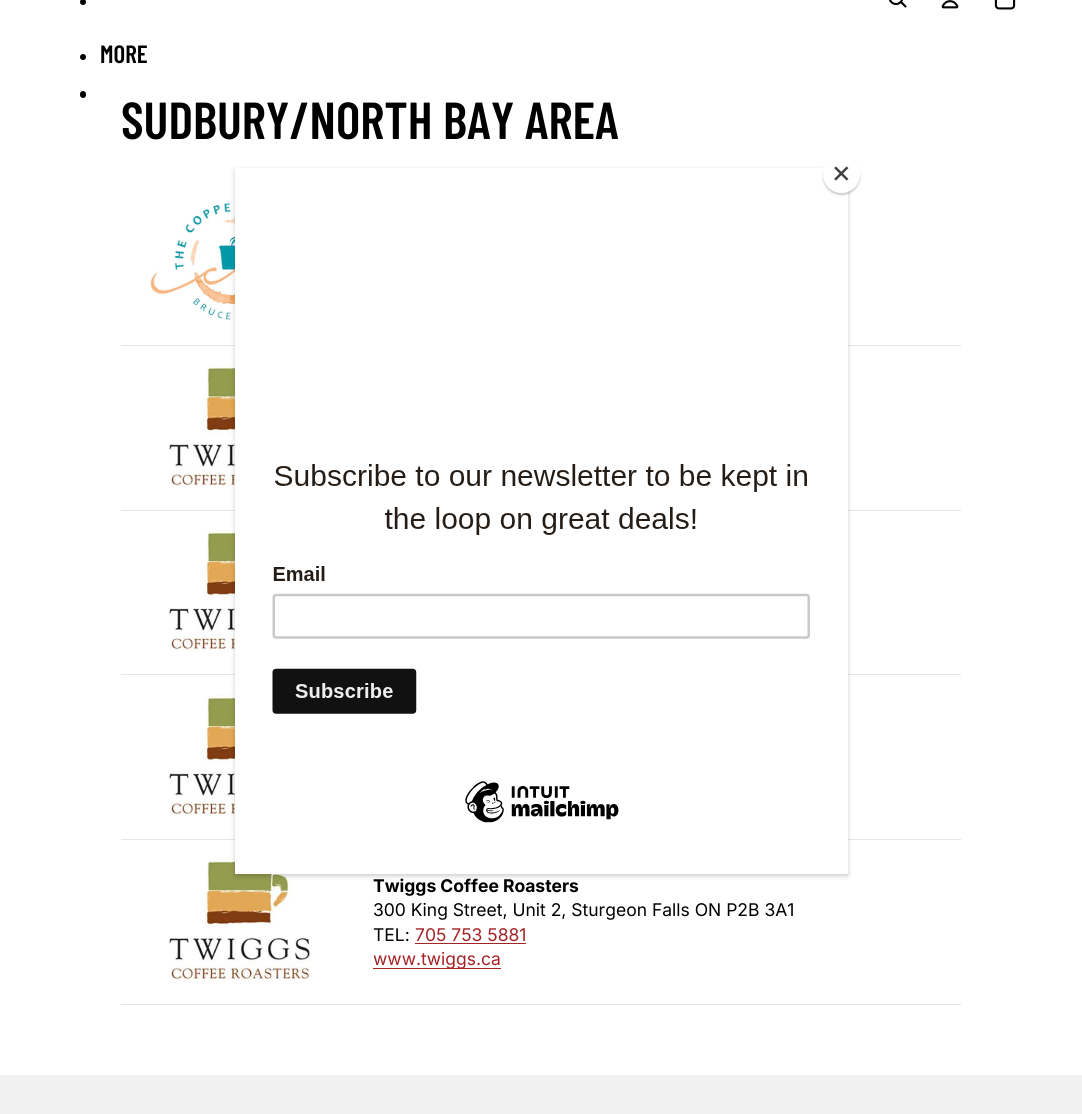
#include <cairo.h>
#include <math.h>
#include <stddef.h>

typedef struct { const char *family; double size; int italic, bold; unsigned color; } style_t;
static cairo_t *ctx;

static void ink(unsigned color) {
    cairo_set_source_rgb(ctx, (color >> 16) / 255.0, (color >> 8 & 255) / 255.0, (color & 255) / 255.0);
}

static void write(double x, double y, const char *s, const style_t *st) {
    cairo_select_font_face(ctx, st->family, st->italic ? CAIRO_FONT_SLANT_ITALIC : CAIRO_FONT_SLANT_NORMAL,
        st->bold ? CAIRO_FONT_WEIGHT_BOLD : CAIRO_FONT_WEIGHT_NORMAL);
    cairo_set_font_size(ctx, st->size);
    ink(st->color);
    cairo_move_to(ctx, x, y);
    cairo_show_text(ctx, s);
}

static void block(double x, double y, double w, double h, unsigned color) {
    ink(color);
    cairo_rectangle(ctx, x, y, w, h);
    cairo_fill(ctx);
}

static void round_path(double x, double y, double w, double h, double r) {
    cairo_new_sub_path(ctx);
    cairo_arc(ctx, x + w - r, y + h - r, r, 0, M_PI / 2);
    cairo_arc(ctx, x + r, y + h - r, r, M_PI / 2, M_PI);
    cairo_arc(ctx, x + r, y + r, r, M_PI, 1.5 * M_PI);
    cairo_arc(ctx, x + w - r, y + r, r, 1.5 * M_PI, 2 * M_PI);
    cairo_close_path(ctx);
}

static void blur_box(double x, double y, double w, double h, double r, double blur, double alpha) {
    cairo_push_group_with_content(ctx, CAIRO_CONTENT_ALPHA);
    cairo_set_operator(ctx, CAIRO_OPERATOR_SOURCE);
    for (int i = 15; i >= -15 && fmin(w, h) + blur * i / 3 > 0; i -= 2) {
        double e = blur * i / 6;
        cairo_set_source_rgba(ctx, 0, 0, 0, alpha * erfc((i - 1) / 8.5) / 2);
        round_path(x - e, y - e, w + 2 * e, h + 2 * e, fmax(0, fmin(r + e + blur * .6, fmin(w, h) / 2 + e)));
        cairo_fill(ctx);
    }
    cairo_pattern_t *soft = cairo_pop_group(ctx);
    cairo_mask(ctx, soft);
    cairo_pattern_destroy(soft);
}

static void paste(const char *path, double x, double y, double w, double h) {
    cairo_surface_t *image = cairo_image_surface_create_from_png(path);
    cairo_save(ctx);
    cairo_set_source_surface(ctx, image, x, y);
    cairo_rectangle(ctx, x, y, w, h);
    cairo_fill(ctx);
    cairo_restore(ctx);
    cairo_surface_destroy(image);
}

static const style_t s1 = {"Barlow Condensed SemiBold", 25, 0, 0, 0x000000};
static const style_t s2 = {"Barlow Condensed SemiBold", 52, 0, 0, 0x000000};
static const style_t s3 = {"Inter", 17.5, 0, 1, 0x000000};
static const style_t s4 = {"Inter", 17.5, 0, 0, 0x000000};
static const style_t s5 = {"Inter", 17.5, 0, 0, 0xa42325};

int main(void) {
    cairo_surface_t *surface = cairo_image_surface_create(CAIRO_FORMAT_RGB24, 1082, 1114);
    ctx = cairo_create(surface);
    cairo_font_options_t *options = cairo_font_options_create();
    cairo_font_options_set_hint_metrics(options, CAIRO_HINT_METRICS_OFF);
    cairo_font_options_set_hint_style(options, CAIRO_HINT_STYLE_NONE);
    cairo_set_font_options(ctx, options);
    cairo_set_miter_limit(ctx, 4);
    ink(0xffffff);
    cairo_paint(ctx);
    cairo_arc(ctx, 896, -2.5, 6.5, 0, 2 * M_PI);
    ink(0x000000);
    cairo_set_line_width(ctx, 2.1);
    cairo_stroke(ctx);
    cairo_new_path(ctx);
    cairo_move_to(ctx, 901, 2);
    cairo_line_to(ctx, 905.5, 6.5);
    cairo_set_line_cap(ctx, CAIRO_LINE_CAP_ROUND);
    cairo_set_line_join(ctx, CAIRO_LINE_JOIN_ROUND);
    cairo_stroke(ctx);
    paste("pic1.png", 941, 0, 18, 9);
    paste("pic2.png", 994, 0, 22, 10);
    cairo_arc(ctx, 83, 2, 3, 0, 2 * M_PI);
    cairo_fill(ctx);
    cairo_arc(ctx, 83, 57, 3, 0, 2 * M_PI);
    cairo_fill(ctx);
    write(100, 63, "MORE", &s1);
    round_path(80, 91, 6, 7, 3);
    cairo_fill(ctx);
    write(121, 139, "SUDBURY/NORTH BAY AREA", &s2);
    block(121, 345, 840, 1, 0xe6e6e6);
    paste("pic3.png", 150, 203, 85, 117);
    block(121, 510, 840, 1, 0xe6e6e6);
    paste("pic4.png", 168, 360, 67, 126);
    block(121, 674, 840, 1, 0xe6e6e6);
    paste("pic5.png", 168, 525, 67, 125);
    block(121, 839, 840, 1, 0xe6e6e6);
    paste("pic6.png", 168, 690, 67, 125);
    block(121, 1004, 840, 1, 0xe6e6e6);
    paste("pic7.png", 168, 854, 144, 126);
    write(373, 892, "Twiggs Coffee Roasters", &s3);
    write(373, 916, "300 King Street, Unit 2, Sturgeon Falls ON P2B 3A1", &s4);
    write(373, 941, "TEL:", &s4);
    write(415, 941, "705 753 5881", &s5);
    block(415, 943, 111, 1, 0xa42325);
    block(373, 968, 128, 1, 0xa42325);
    write(373, 965, "www.twiggs.ca", &s5);
    ink(0x000000);
    blur_box(235, 170, 613, 706, 0, 2.5, 0.2);
    paste("pic8.png", 235, 168, 613, 706);
    blur_box(823, 158, 37, 37, 18.5, 1, 0.2);
    ink(0xffffff);
    round_path(823, 155, 37, 38, 18.5);
    cairo_fill(ctx);
    ink(0x414141);
    cairo_new_path(ctx);
    cairo_move_to(ctx, 846.5, 166.5);
    cairo_line_to(ctx, 848.5, 168);
    cairo_line_to(ctx, 836, 180.5);
    cairo_line_to(ctx, 834, 179);
    cairo_close_path(ctx);
    cairo_fill(ctx);
    cairo_new_path(ctx);
    cairo_move_to(ctx, 834, 168);
    cairo_line_to(ctx, 836, 166.5);
    cairo_line_to(ctx, 848.5, 179);
    cairo_line_to(ctx, 846.5, 180.5);
    cairo_close_path(ctx);
    cairo_fill(ctx);
    block(0, 1075, 1082, 39, 0xf1f1f1);
    cairo_surface_write_to_png(surface, "screenshot.png");
    cairo_font_options_destroy(options);
    cairo_destroy(ctx);
    cairo_surface_destroy(surface);
    return 0;
}
